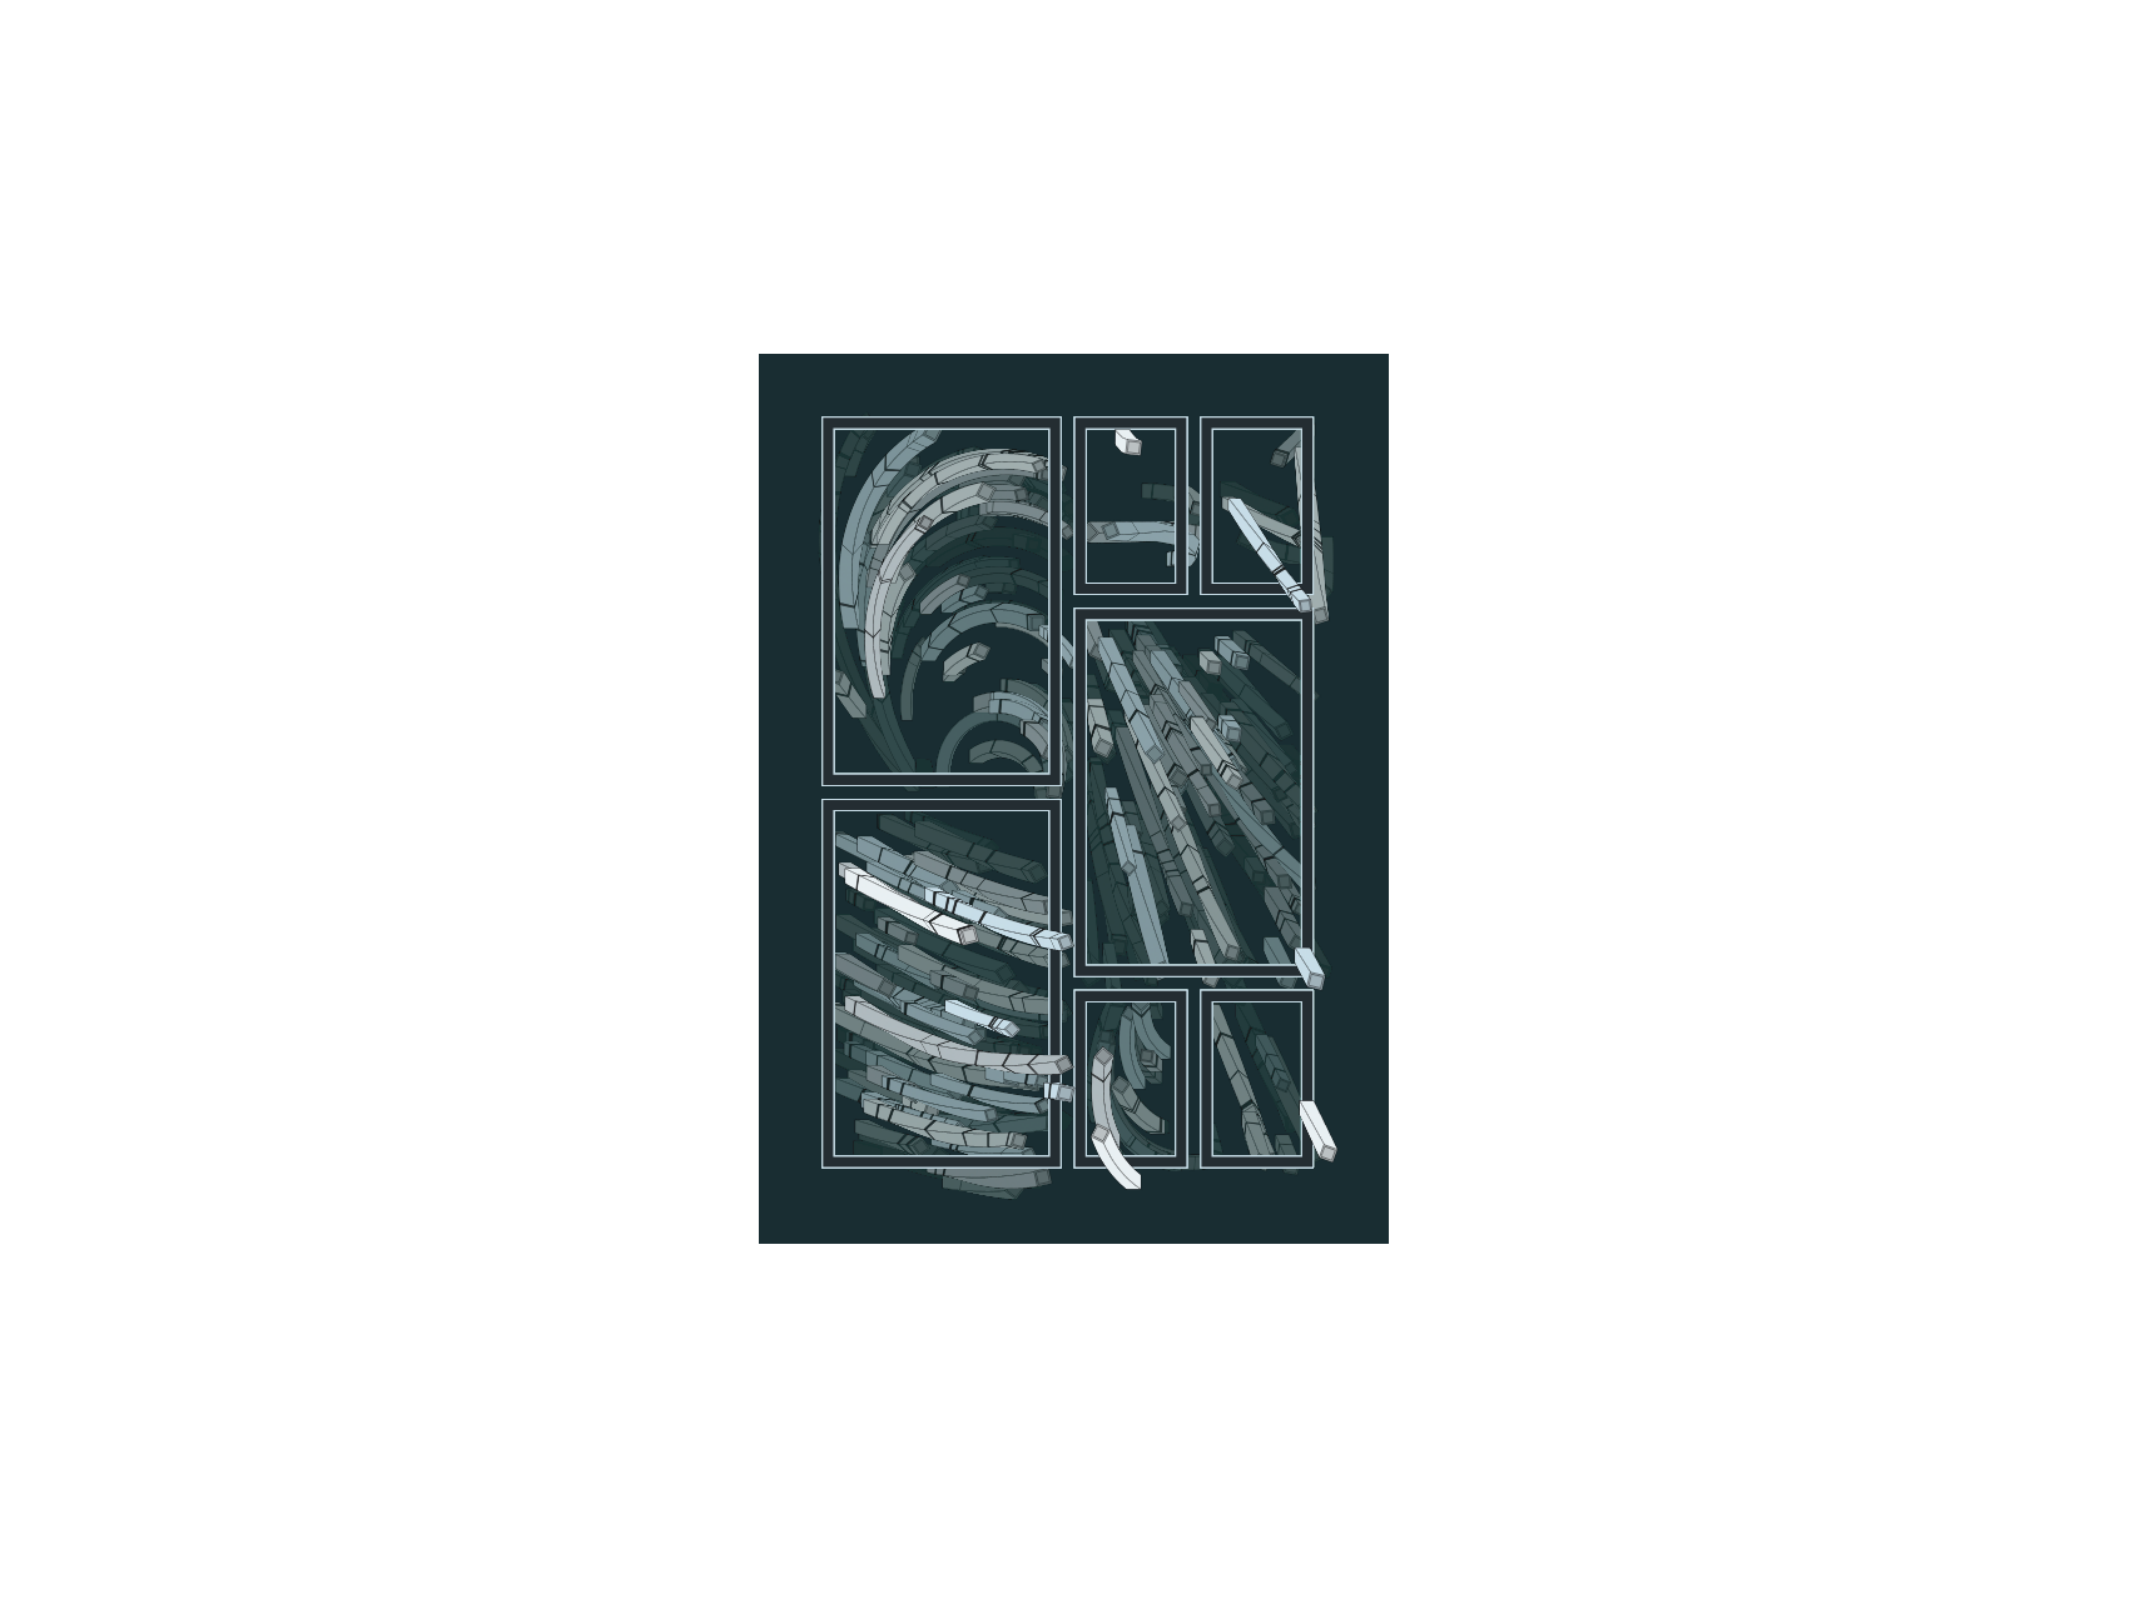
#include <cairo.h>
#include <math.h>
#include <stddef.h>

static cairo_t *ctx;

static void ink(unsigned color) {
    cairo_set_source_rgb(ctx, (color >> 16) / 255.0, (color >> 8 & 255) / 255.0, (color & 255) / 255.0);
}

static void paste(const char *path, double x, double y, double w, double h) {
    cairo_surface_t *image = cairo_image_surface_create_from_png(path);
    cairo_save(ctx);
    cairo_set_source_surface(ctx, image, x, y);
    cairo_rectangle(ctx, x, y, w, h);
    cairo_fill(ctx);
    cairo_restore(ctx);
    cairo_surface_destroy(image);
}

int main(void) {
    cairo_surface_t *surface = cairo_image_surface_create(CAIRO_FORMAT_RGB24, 2147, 1601);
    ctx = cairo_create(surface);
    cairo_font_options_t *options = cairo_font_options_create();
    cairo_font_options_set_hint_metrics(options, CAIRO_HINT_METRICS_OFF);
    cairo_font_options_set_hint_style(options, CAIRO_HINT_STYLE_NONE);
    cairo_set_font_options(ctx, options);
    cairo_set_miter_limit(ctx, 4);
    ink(0xffffff);
    cairo_paint(ctx);
    paste("pic1.png", 758, 353, 631, 891);
    cairo_surface_write_to_png(surface, "screenshot.png");
    cairo_font_options_destroy(options);
    cairo_destroy(ctx);
    cairo_surface_destroy(surface);
    return 0;
}
